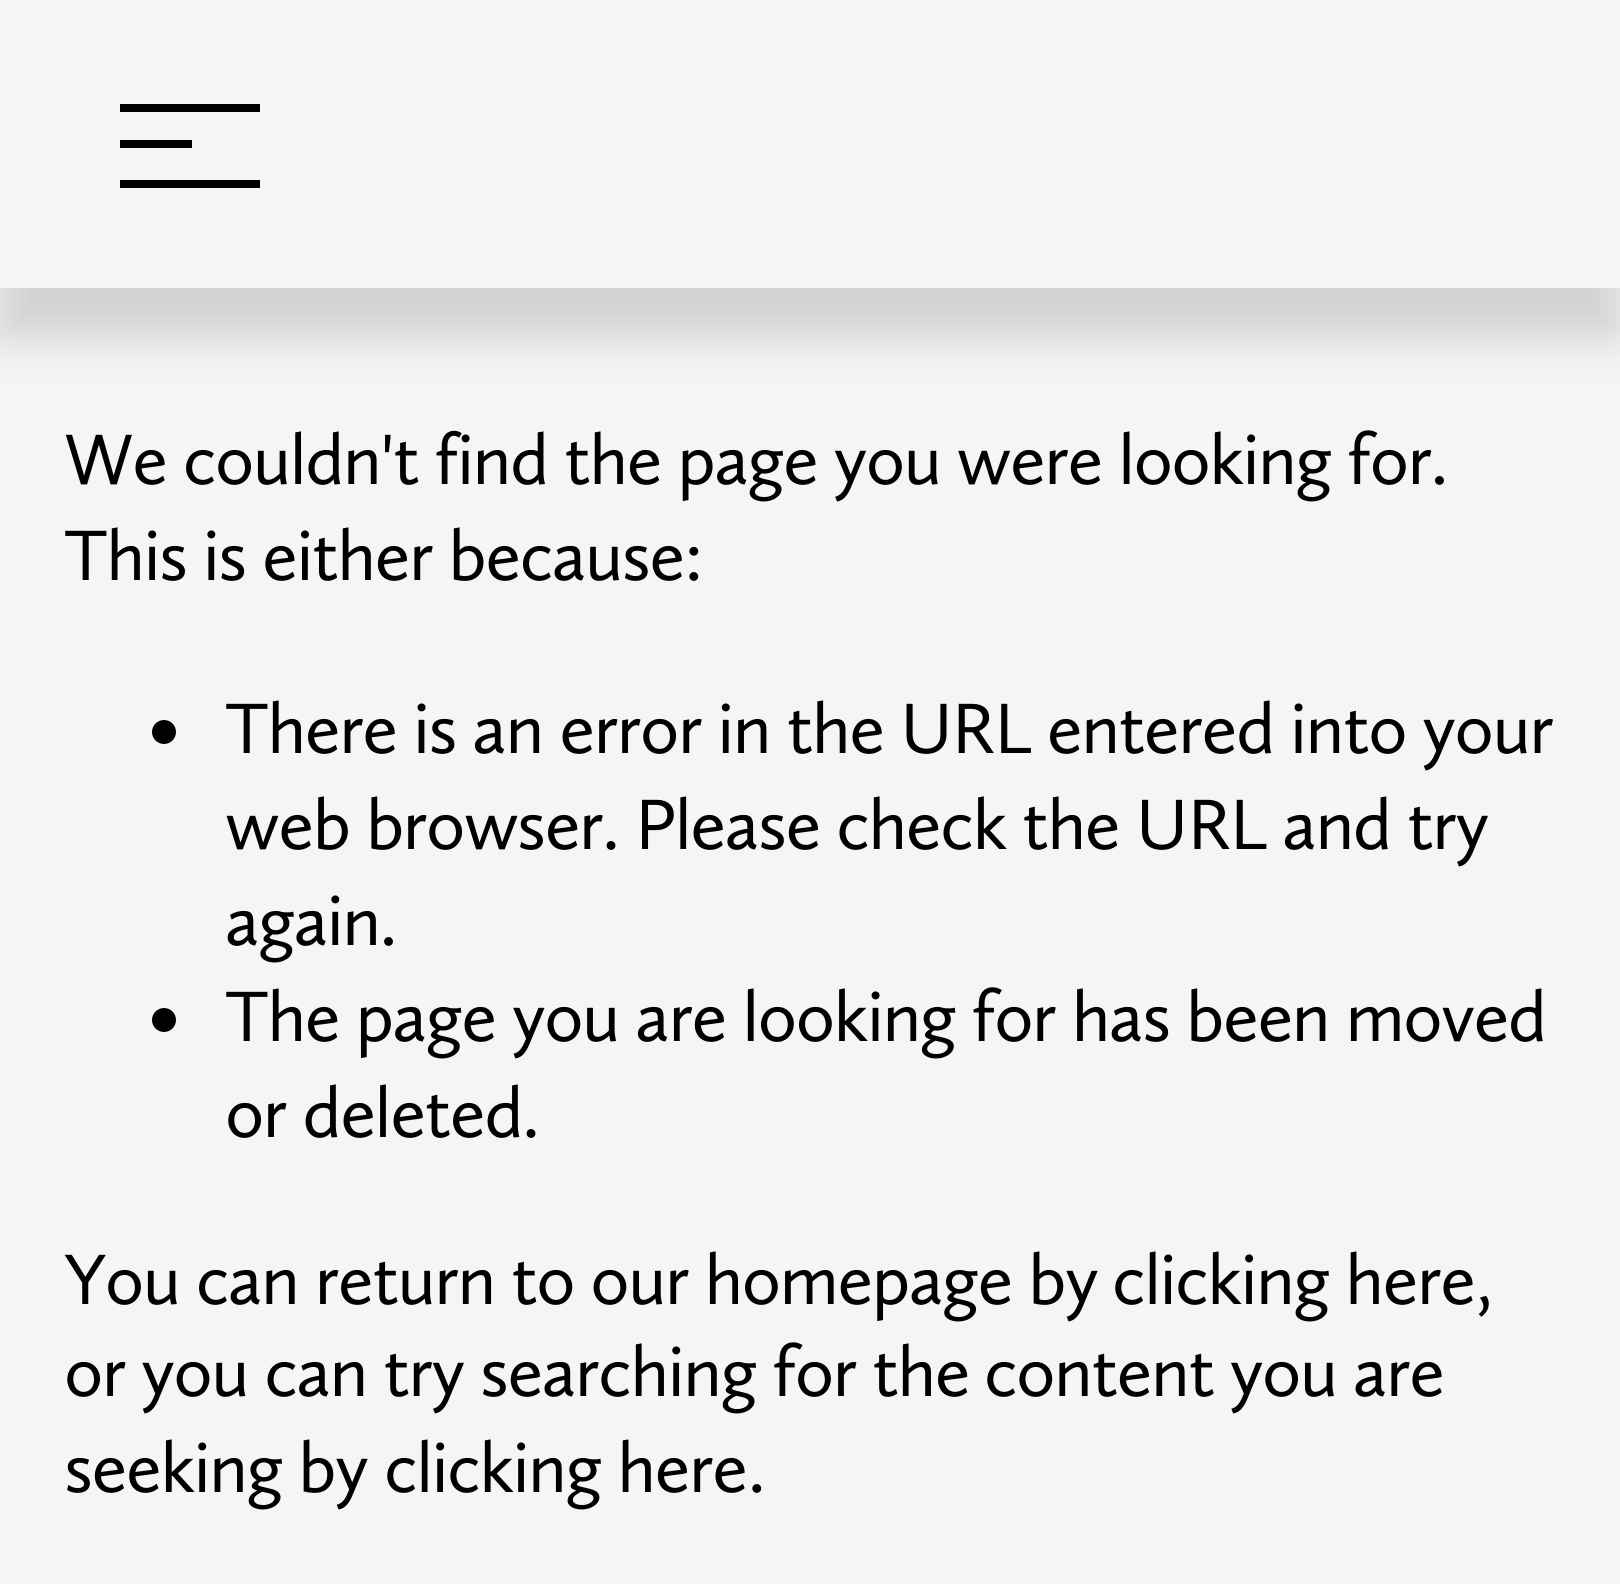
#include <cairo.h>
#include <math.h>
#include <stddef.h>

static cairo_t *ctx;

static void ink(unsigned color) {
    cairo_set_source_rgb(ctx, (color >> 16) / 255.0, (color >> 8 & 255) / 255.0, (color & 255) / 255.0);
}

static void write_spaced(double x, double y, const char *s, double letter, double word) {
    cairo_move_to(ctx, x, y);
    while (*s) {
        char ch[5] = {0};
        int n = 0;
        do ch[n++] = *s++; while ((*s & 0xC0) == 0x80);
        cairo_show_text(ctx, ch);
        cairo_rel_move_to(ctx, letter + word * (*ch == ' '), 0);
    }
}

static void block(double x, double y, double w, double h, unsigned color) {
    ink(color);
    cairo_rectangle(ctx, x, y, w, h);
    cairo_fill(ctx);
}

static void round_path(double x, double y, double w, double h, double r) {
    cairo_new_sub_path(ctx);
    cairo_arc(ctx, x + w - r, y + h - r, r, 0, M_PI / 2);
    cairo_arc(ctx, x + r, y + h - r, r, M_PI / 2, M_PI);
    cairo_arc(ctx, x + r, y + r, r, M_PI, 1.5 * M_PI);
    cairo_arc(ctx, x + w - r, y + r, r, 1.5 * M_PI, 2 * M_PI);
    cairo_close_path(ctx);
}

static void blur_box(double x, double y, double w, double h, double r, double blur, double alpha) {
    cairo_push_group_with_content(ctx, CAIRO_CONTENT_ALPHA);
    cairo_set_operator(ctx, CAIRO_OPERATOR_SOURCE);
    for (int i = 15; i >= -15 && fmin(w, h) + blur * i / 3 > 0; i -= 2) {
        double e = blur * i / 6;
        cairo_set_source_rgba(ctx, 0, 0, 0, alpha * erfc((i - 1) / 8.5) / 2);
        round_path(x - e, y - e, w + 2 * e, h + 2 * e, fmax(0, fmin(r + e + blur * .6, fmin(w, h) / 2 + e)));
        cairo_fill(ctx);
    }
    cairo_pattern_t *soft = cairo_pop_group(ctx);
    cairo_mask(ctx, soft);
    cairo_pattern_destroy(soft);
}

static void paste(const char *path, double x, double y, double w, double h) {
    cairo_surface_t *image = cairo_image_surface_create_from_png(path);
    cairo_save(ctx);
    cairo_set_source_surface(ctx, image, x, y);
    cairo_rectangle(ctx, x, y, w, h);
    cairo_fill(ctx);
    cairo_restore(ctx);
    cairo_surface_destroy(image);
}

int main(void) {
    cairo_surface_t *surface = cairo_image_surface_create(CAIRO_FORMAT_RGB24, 1620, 1584);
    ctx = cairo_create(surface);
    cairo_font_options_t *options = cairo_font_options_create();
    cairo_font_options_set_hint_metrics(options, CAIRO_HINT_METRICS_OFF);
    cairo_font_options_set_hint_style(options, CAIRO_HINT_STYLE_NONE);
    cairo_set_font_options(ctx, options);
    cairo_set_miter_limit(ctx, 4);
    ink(0xf5f5f5);
    cairo_paint(ctx);
    cairo_save(ctx);
    cairo_rectangle(ctx, 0, 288, 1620, 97);
    cairo_clip(ctx);
    ink(0xd0d0d0);
    blur_box(0, 48, 1620, 288, 0, 24, 1);
    cairo_restore(ctx);
    block(120, 104, 140, 8, 0x000000);
    block(120, 140, 72, 8, 0x000000);
    block(120, 180, 140, 8, 0x000000);
    paste("pic1.png", 65, 430, 1379, 72);
    paste("pic2.png", 65, 527, 634, 54);
    cairo_arc(ctx, 164, 732, 12, 0, 2 * M_PI);
    cairo_fill(ctx);
    cairo_select_font_face(ctx, "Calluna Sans", CAIRO_FONT_SLANT_NORMAL, CAIRO_FONT_WEIGHT_NORMAL);
    cairo_set_font_size(ctx, 73.75);
    write_spaced(225, 753, "There is an error in the URL entered into your", -1.45, 0);
    write_spaced(225, 849, "web browser. Please check the URL and try", -1.45, 0);
    write_spaced(225, 945, "again.", -1.45, 0);
    cairo_new_path(ctx);
    cairo_arc(ctx, 164, 1020, 12, 0, 2 * M_PI);
    cairo_fill(ctx);
    write_spaced(225, 1041, "The page you are looking for has been moved", -1.45, 0);
    write_spaced(225, 1137, "or deleted.", -1.45, 0);
    paste("pic3.png", 64, 1251, 1034, 71);
    paste("pic4.png", 1115, 1251, 358, 71);
    paste("pic5.png", 1478, 1295, 11, 22);
    paste("pic6.png", 67, 1342, 901, 72);
    paste("pic7.png", 987, 1353, 455, 61);
    paste("pic8.png", 67, 1439, 301, 71);
    paste("pic4.png", 387, 1439, 358, 71);
    paste("pic9.png", 752, 1484, 10, 9);
    cairo_surface_write_to_png(surface, "screenshot.png");
    cairo_font_options_destroy(options);
    cairo_destroy(ctx);
    cairo_surface_destroy(surface);
    return 0;
}
